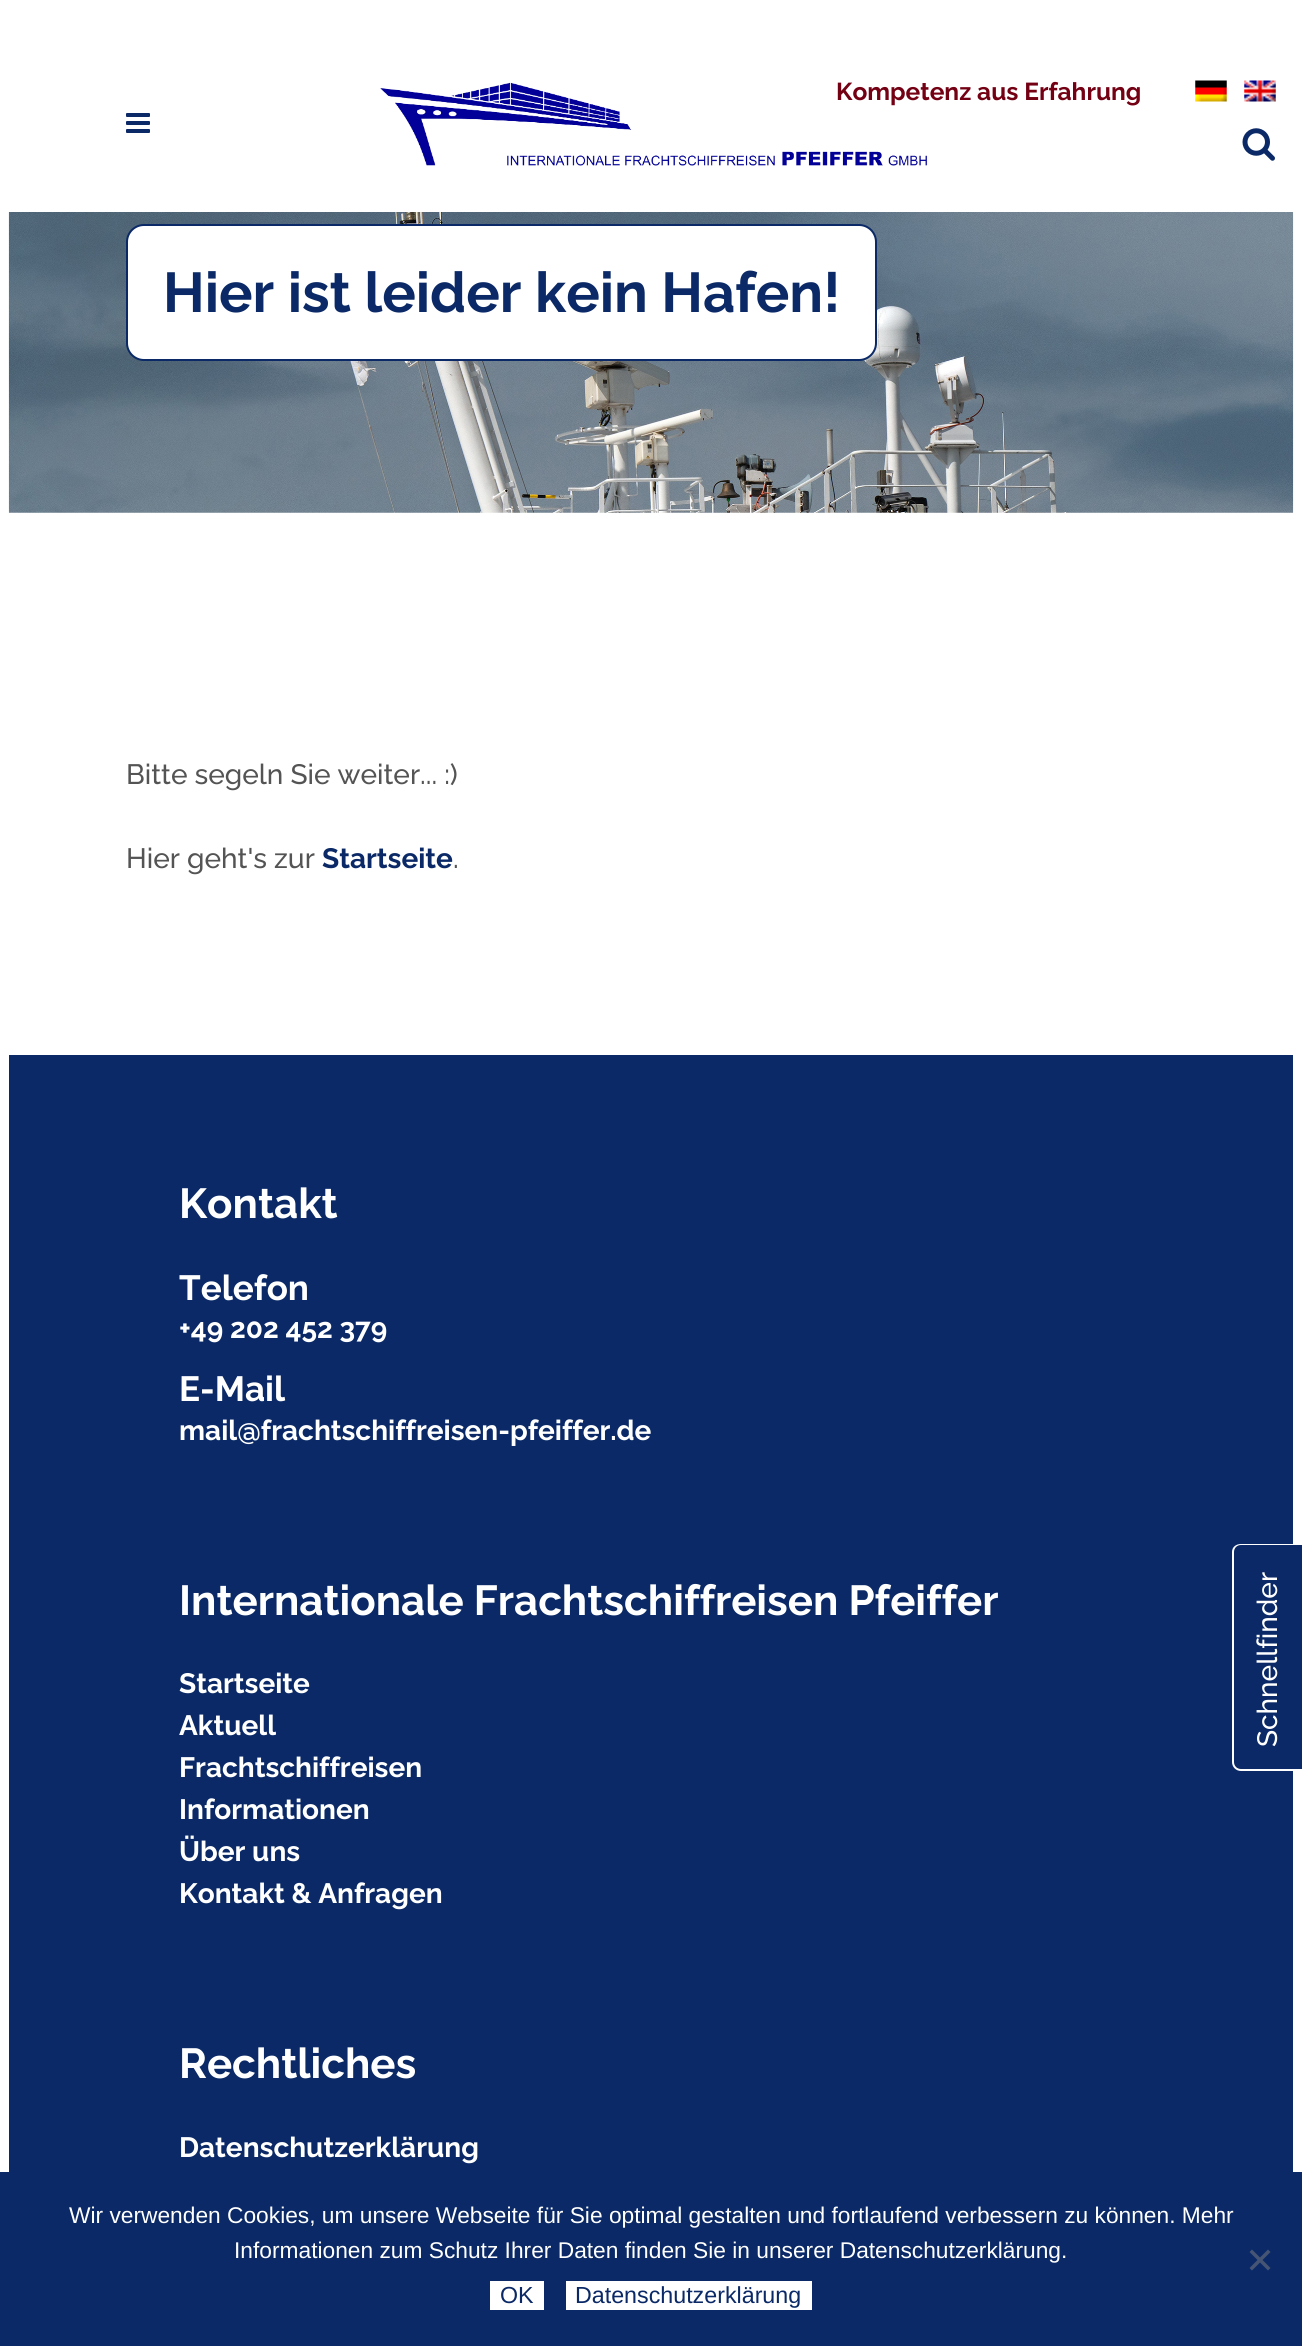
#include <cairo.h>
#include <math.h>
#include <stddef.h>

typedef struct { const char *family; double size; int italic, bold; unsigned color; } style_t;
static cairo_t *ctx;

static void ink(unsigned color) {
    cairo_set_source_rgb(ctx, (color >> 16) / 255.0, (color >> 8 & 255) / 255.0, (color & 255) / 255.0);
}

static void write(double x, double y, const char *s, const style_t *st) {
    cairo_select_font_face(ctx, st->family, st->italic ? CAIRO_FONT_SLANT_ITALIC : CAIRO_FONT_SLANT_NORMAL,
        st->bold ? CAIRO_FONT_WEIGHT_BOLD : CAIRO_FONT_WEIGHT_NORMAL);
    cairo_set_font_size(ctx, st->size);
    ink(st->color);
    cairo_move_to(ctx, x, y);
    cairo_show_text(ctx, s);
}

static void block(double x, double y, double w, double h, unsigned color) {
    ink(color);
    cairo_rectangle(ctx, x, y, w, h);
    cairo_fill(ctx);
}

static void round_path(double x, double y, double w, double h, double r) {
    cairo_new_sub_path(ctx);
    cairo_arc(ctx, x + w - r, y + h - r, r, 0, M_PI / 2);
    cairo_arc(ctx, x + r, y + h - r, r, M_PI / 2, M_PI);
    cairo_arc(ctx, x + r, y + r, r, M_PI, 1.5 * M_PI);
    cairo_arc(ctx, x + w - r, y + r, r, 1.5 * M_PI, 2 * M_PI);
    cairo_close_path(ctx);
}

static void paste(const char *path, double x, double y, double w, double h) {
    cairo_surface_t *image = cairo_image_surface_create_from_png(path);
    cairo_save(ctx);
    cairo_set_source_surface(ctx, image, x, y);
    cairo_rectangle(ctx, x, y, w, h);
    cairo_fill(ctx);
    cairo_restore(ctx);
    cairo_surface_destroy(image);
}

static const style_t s1 = {"Raleway", 24.5, 0, 1, 0x730013};
static const style_t s2 = {"Raleway", 56, 0, 1, 0x0a2966};
static const style_t s3 = {"Raleway Medium", 28, 0, 0, 0x545454};
static const style_t s4 = {"Raleway", 28, 0, 1, 0x0a2966};
static const style_t s5 = {"Raleway", 42, 0, 1, 0xffffff};
static const style_t s6 = {"Raleway", 35, 0, 1, 0xffffff};
static const style_t s7 = {"Raleway", 28, 0, 1, 0xffffff};
static const style_t s8 = {"Raleway Medium", 28, 0, 0, 0xffffff};
static const style_t s9 = {"Liberation Sans", 22.75, 0, 0, 0xffffff};
static const style_t s10 = {"Liberation Sans", 23.25, 0, 0, 0x0a2966};

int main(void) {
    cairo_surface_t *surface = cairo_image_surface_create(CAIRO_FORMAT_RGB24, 1302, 2346);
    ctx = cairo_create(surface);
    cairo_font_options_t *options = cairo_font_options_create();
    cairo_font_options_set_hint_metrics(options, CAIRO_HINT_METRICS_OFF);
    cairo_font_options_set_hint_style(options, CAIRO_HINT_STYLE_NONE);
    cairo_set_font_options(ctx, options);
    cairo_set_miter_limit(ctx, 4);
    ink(0xffffff);
    cairo_paint(ctx);
    paste("pic5.png", 380, 82, 548, 84);
    write(836, 100, "Kompetenz aus Erfahrung", &s1);
    paste("pic1.png", 1195, 80, 32, 22);
    paste("pic2.png", 1244, 80, 32, 22);
    paste("pic3.png", 1242, 128, 33, 33);
    paste("pic4.png", 126, 113, 24, 20);
    paste("pic6.png", 8, 212, 1286, 301);
    ink(0xffffff);
    round_path(127, 225, 749, 135, 17);
    cairo_fill_preserve(ctx);
    ink(0x0a2966);
    cairo_stroke(ctx);
    write(163, 312, "Hier ist leider kein Hafen!", &s2);
    write(126, 784, "Bitte segeln Sie weiter... :)", &s3);
    write(126, 868, "Hier geht's zur", &s3);
    write(322, 868, "Startseite", &s4);
    write(453, 868, ".", &s3);
    block(9, 1055, 1284, 1117, 0x0a2966);
    write(179, 1218, "Kontakt", &s5);
    write(179, 1300, "Telefon", &s6);
    write(179, 1338, "+49 202 452 379", &s7);
    write(179, 1401, "E-Mail", &s6);
    write(179, 1440, "mail@frachtschiffreisen-pfeiffer.de", &s7);
    write(179, 1615, "Internationale Frachtschiffreisen Pfeiffer", &s5);
    write(179, 1693, "Startseite", &s7);
    write(179, 1735, "Aktuell", &s7);
    write(179, 1777, "Frachtschiffreisen", &s7);
    write(179, 1819, "Informationen", &s7);
    write(179, 1861, "Über uns", &s7);
    write(179, 1903, "Kontakt & Anfragen", &s7);
    write(179, 2078, "Rechtliches", &s5);
    write(179, 2157, "Datenschutzerklärung", &s7);
    ink(0x0a2966);
    cairo_new_path(ctx);
    cairo_move_to(ctx, 1241, 1545);
    cairo_line_to(ctx, 1302, 1545);
    cairo_line_to(ctx, 1302, 1769);
    cairo_line_to(ctx, 1241, 1769);
    cairo_curve_to(ctx, 1237, 1769, 1234, 1766, 1234, 1762);
    cairo_line_to(ctx, 1234, 1552);
    cairo_curve_to(ctx, 1234, 1548, 1237, 1545, 1241, 1545);
    cairo_close_path(ctx);
    cairo_fill(ctx);
    ink(0xffffff);
    cairo_set_fill_rule(ctx, CAIRO_FILL_RULE_EVEN_ODD);
    cairo_new_path(ctx);
    cairo_move_to(ctx, 1241, 1544);
    cairo_line_to(ctx, 1302, 1544);
    cairo_line_to(ctx, 1302, 1771);
    cairo_line_to(ctx, 1241, 1771);
    cairo_curve_to(ctx, 1236, 1771, 1232, 1767, 1232, 1762);
    cairo_line_to(ctx, 1232, 1552);
    cairo_curve_to(ctx, 1232, 1547, 1236, 1544, 1241, 1544);
    cairo_close_path(ctx);
    cairo_move_to(ctx, 1241, 1545);
    cairo_line_to(ctx, 1302, 1545);
    cairo_line_to(ctx, 1302, 1769);
    cairo_line_to(ctx, 1241, 1769);
    cairo_curve_to(ctx, 1237, 1769, 1234, 1766, 1234, 1762);
    cairo_line_to(ctx, 1234, 1552);
    cairo_curve_to(ctx, 1234, 1548, 1237, 1545, 1241, 1545);
    cairo_close_path(ctx);
    cairo_fill(ctx);
    cairo_save(ctx);
    cairo_translate(ctx, 1277, 1747);
    cairo_rotate(ctx, -90 * M_PI / 180);
    write(0, 0, "Schnellfinder", &s8);
    cairo_restore(ctx);
    block(0, 2172, 1302, 174, 0x0a2966);
    write(69, 2223, "Wir verwenden Cookies, um unsere Webseite für Sie optimal gestalten und fortlaufend verbessern zu können. Mehr", &s9);
    write(234, 2258, "Informationen zum Schutz Ihrer Daten finden Sie in unserer Datenschutzerklärung.", &s9);
    ink(0x455573);
    cairo_set_fill_rule(ctx, CAIRO_FILL_RULE_WINDING);
    cairo_new_path(ctx);
    cairo_move_to(ctx, 1268, 2249.5);
    cairo_line_to(ctx, 1270.5, 2252);
    cairo_line_to(ctx, 1252, 2270.5);
    cairo_line_to(ctx, 1249.5, 2268);
    cairo_close_path(ctx);
    cairo_fill(ctx);
    cairo_new_path(ctx);
    cairo_move_to(ctx, 1249.5, 2252);
    cairo_line_to(ctx, 1252, 2249.5);
    cairo_line_to(ctx, 1270.5, 2268);
    cairo_line_to(ctx, 1268, 2270.5);
    cairo_close_path(ctx);
    cairo_fill(ctx);
    block(490, 2281, 54, 29, 0xffffff);
    write(500, 2303, "OK", &s10);
    block(566, 2281, 246, 29, 0xffffff);
    write(575, 2303, "Datenschutzerklärung", &s10);
    cairo_surface_write_to_png(surface, "screenshot.png");
    cairo_font_options_destroy(options);
    cairo_destroy(ctx);
    cairo_surface_destroy(surface);
    return 0;
}
